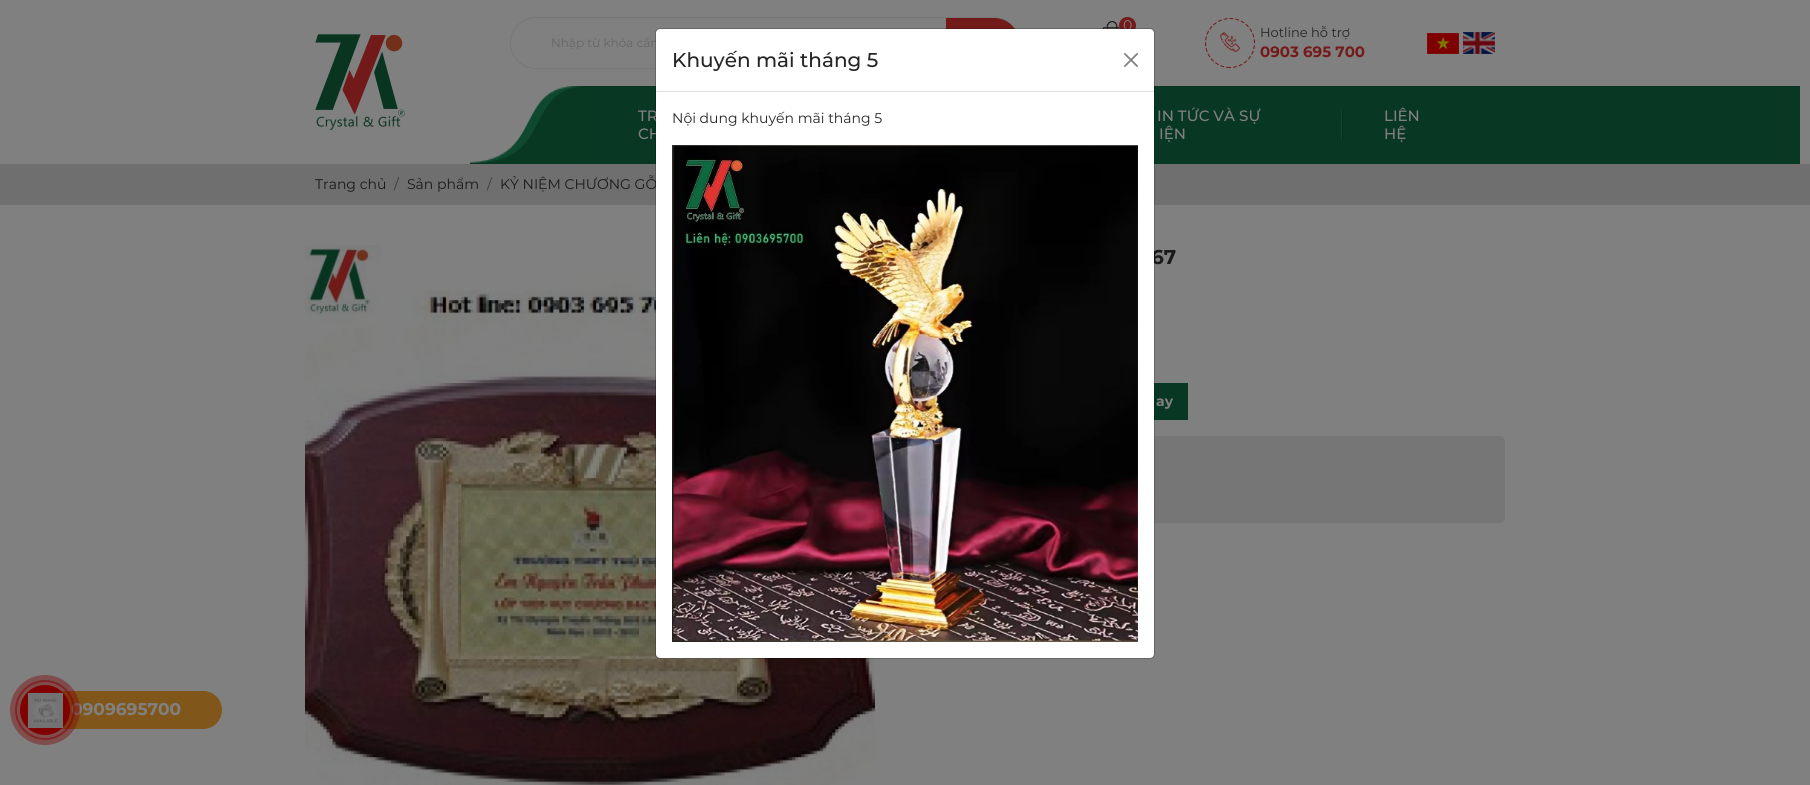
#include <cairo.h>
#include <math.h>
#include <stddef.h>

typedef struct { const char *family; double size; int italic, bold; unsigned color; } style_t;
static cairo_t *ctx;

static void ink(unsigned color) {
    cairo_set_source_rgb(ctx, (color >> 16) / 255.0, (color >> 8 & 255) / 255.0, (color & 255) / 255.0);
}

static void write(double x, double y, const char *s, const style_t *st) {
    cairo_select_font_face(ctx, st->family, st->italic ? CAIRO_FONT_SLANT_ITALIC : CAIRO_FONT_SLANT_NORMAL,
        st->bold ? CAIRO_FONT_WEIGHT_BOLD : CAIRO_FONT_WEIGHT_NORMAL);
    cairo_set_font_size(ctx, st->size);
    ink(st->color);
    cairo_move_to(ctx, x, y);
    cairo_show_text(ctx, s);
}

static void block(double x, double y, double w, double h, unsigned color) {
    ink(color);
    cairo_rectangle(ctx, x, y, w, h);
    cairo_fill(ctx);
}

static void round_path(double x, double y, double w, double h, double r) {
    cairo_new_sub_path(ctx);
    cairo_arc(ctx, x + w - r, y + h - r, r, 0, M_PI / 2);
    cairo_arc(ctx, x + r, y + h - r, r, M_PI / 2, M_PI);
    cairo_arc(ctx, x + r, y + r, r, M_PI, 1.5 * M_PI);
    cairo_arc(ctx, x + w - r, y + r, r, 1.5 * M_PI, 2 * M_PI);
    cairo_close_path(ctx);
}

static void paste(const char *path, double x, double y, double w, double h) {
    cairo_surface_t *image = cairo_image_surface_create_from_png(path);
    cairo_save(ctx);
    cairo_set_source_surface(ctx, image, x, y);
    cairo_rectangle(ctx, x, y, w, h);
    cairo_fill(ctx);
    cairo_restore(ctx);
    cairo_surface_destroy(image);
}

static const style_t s1 = {"Montserrat", 12, 0, 0, 0x666666};
static const style_t s2 = {"Montserrat", 14, 0, 0, 0x808080};
static const style_t s3 = {"Montserrat", 13, 0, 0, 0x252525};
static const style_t s4 = {"Montserrat", 15, 0, 1, 0x731a1a};
static const style_t s5 = {"Montserrat Medium", 15, 0, 0, 0x808080};
static const style_t s6 = {"Montserrat", 14, 0, 0, 0x1a1a1a};
static const style_t s7 = {"Montserrat", 20, 0, 1, 0x1a1a1a};
static const style_t s8 = {"Montserrat Medium", 20, 0, 0, 0x252525};
static const style_t s9 = {"Montserrat", 14, 0, 0, 0x252525};
static const style_t s10 = {"Montserrat", 14, 0, 0, 0x363b3f};
static const style_t s11 = {"Montserrat", 14, 0, 1, 0x808080};
static const style_t s12 = {"Montserrat", 17, 0, 1, 0x808080};

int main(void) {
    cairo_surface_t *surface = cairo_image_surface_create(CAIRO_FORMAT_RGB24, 1810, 785);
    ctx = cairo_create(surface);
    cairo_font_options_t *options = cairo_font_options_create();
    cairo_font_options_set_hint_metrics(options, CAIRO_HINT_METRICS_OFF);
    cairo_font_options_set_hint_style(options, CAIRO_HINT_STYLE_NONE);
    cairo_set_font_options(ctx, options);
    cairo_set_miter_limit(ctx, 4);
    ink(0x808080);
    cairo_paint(ctx);
    paste("pic1.png", 315, 34, 90, 96);
    round_path(510.5, 17.5, 509, 51, 25.5);
    ink(0x777777);
    cairo_set_line_width(ctx, 1);
    cairo_stroke(ctx);
    write(551, 47, "Nhập từ khóa cần", &s1);
    ink(0x731a1a);
    cairo_new_path(ctx);
    cairo_move_to(ctx, 946, 18);
    cairo_line_to(ctx, 994, 18);
    cairo_curve_to(ctx, 1008, 18, 1019, 29, 1019, 43);
    cairo_curve_to(ctx, 1019, 57, 1008, 68, 994, 68);
    cairo_line_to(ctx, 946, 68);
    cairo_close_path(ctx);
    cairo_fill(ctx);
    paste("pic2.png", 1102, 21, 18, 8);
    cairo_arc(ctx, 1127.5, 25.5, 8.5, 0, 2 * M_PI);
    cairo_fill(ctx);
    write(1123, 30, "0", &s2);
    paste("pic3.png", 1205, 18, 50, 50);
    write(1260, 37, "Hotline hỗ trợ", &s3);
    write(1260, 57, "0903 695 700", &s4);
    paste("pic4.png", 1427, 33, 32, 21);
    paste("pic5.png", 1463, 32, 32, 22);
    paste("pic6.png", 470, 86, 118, 78);
    block(588, 86, 1212, 78, 0x083723);
    write(638, 121, "TR", &s5);
    write(638, 139, "CH", &s5);
    write(1157, 121, "IN TỨC VÀ SỰ", &s5);
    write(1159, 139, "IỆN", &s5);
    paste("pic7.png", 1341, 107, 2, 36);
    write(1384, 121, "LIÊN", &s5);
    write(1384, 139, "HỆ", &s5);
    block(0, 164, 1810, 41, 0x6f6f6f);
    write(500, 189, "KỶ NIỆM CHƯƠNG GỖ", &s6);
    paste("pic10.png", 305, 245, 570, 540);
    write(1151, 264, "67", &s7);
    ink(0x767676);
    round_path(905, 436, 600, 87, 5);
    cairo_fill(ctx);
    ink(0xffffff);
    round_path(656, 29, 498, 629, 4);
    cairo_fill(ctx);
    block(1154, 383, 34, 37, 0x083723);
    round_path(655.5, 28.5, 499, 630, 4.5);
    cairo_set_source_rgba(ctx, 0, 0, 0, 0.2);
    cairo_stroke(ctx);
    block(656, 91, 498, 1, 0xdee2e6);
    write(672, 67, "Khuyến mãi tháng 5", &s8);
    paste("pic8.png", 1124, 53, 14, 14);
    write(672, 123, "Nội dung khuyến mãi tháng 5", &s9);
    paste("pic9.png", 672, 145, 466, 497);
    write(315, 189, "Trang chủ", &s6);
    write(394, 189, "/", &s10);
    write(407, 189, "Sản phẩm", &s6);
    write(487, 189, "/", &s10);
    write(1156, 406, "ay", &s11);
    ink(0x80561a);
    round_path(45.5, 691.5, 176, 37, 18.5);
    cairo_fill_preserve(ctx);
    cairo_stroke(ctx);
    write(71, 715, "0909695700", &s12);
    cairo_new_path(ctx);
    cairo_arc(ctx, 45, 710, 29, 0, 2 * M_PI);
    cairo_set_source_rgba(ctx, 0.502, 0, 0, 0.5);
    cairo_set_line_width(ctx, 2);
    cairo_stroke(ctx);
    cairo_set_source_rgba(ctx, 0.502, 0, 0, 0.4);
    cairo_arc(ctx, 45, 710, 35, 0, 2 * M_PI);
    cairo_fill(ctx);
    ink(0x800000);
    cairo_arc(ctx, 45, 710, 25, 0, 2 * M_PI);
    cairo_fill(ctx);
    paste("pic11.png", 27, 692, 36, 36);
    cairo_surface_write_to_png(surface, "screenshot.png");
    cairo_font_options_destroy(options);
    cairo_destroy(ctx);
    cairo_surface_destroy(surface);
    return 0;
}
